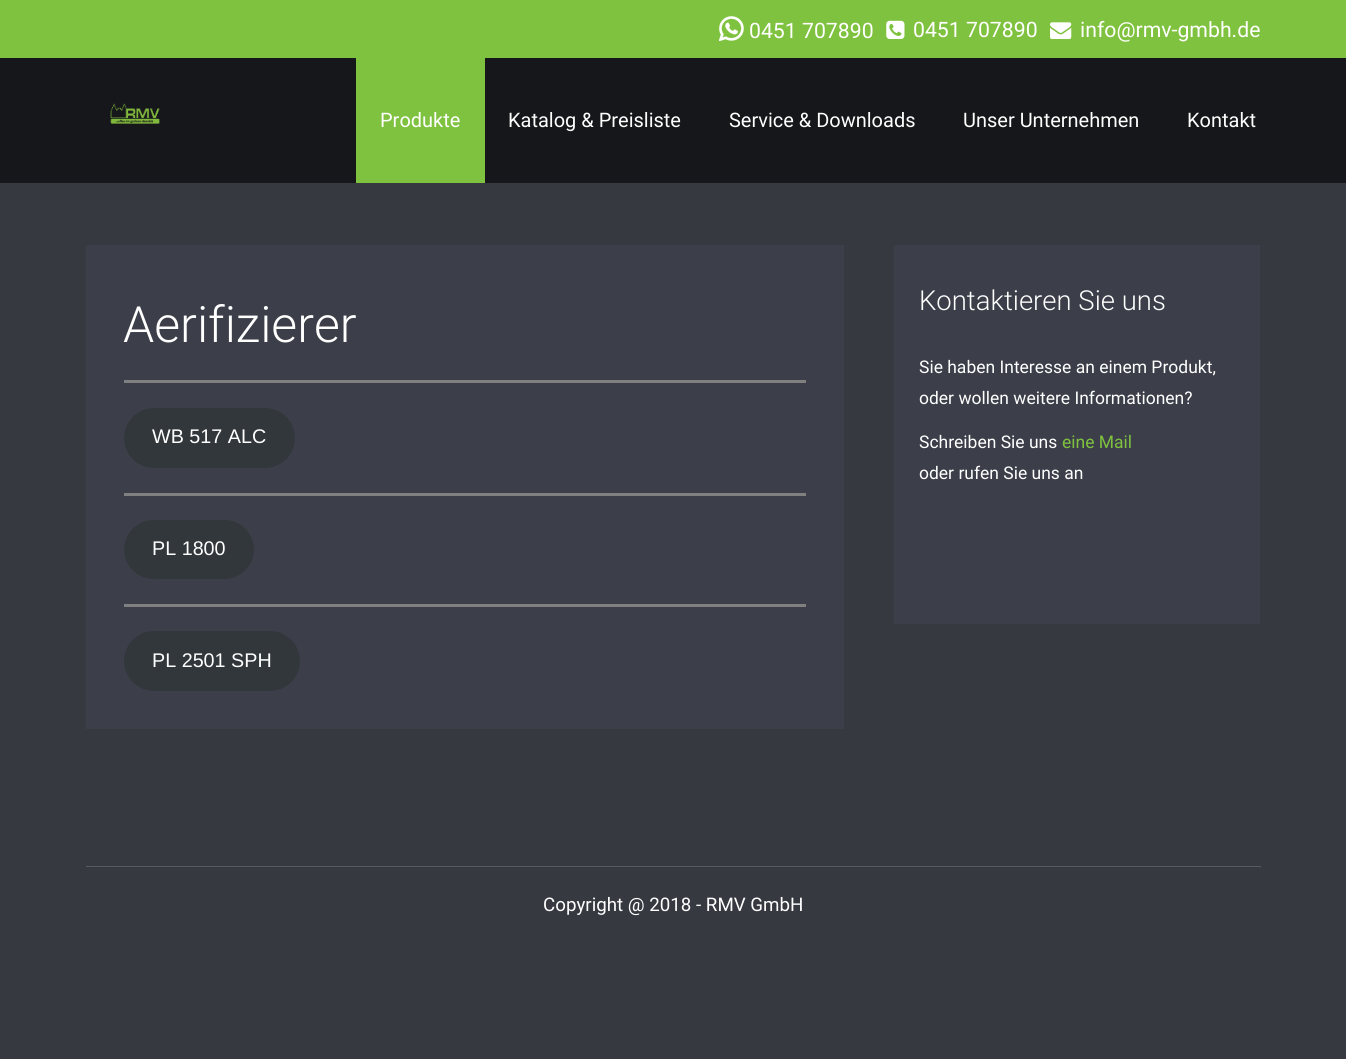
#include <cairo.h>
#include <math.h>
#include <stddef.h>

typedef struct { const char *family; double size; int italic, bold; unsigned color; } style_t;
static cairo_t *ctx;

static void ink(unsigned color) {
    cairo_set_source_rgb(ctx, (color >> 16) / 255.0, (color >> 8 & 255) / 255.0, (color & 255) / 255.0);
}

static void write(double x, double y, const char *s, const style_t *st) {
    cairo_select_font_face(ctx, st->family, st->italic ? CAIRO_FONT_SLANT_ITALIC : CAIRO_FONT_SLANT_NORMAL,
        st->bold ? CAIRO_FONT_WEIGHT_BOLD : CAIRO_FONT_WEIGHT_NORMAL);
    cairo_set_font_size(ctx, st->size);
    ink(st->color);
    cairo_move_to(ctx, x, y);
    cairo_show_text(ctx, s);
}

static void block(double x, double y, double w, double h, unsigned color) {
    ink(color);
    cairo_rectangle(ctx, x, y, w, h);
    cairo_fill(ctx);
}

static void round_path(double x, double y, double w, double h, double r) {
    cairo_new_sub_path(ctx);
    cairo_arc(ctx, x + w - r, y + h - r, r, 0, M_PI / 2);
    cairo_arc(ctx, x + r, y + h - r, r, M_PI / 2, M_PI);
    cairo_arc(ctx, x + r, y + r, r, M_PI, 1.5 * M_PI);
    cairo_arc(ctx, x + w - r, y + r, r, 1.5 * M_PI, 2 * M_PI);
    cairo_close_path(ctx);
}

static void paste(const char *path, double x, double y, double w, double h) {
    cairo_surface_t *image = cairo_image_surface_create_from_png(path);
    cairo_save(ctx);
    cairo_set_source_surface(ctx, image, x, y);
    cairo_rectangle(ctx, x, y, w, h);
    cairo_fill(ctx);
    cairo_restore(ctx);
    cairo_surface_destroy(image);
}

static const style_t s1 = {"Roboto", 21.25, 0, 0, 0xffffff};
static const style_t s2 = {"Roboto", 20, 0, 0, 0xffffff};
static const style_t s3 = {"Roboto Light", 50, 0, 0, 0xffffff};
static const style_t s4 = {"Liberation Sans", 19.75, 0, 0, 0xffffff};
static const style_t s5 = {"Roboto Light", 27.5, 0, 0, 0xffffff};
static const style_t s6 = {"Roboto", 17.5, 0, 0, 0xffffff};
static const style_t s7 = {"Roboto", 17.5, 0, 0, 0x7fc23f};
static const style_t s8 = {"Roboto", 18.75, 0, 0, 0xffffff};

int main(void) {
    cairo_surface_t *surface = cairo_image_surface_create(CAIRO_FORMAT_RGB24, 1346, 1059);
    ctx = cairo_create(surface);
    cairo_font_options_t *options = cairo_font_options_create();
    cairo_font_options_set_hint_metrics(options, CAIRO_HINT_METRICS_OFF);
    cairo_font_options_set_hint_style(options, CAIRO_HINT_STYLE_NONE);
    cairo_set_font_options(ctx, options);
    cairo_set_miter_limit(ctx, 4);
    ink(0x373941);
    cairo_paint(ctx);
    block(0, 0, 1346, 58, 0x7fc23f);
    paste("pic1.png", 719, 16, 25, 25);
    write(749, 38, "0451 707890", &s1);
    paste("pic2.png", 886, 20, 19, 19);
    write(913, 37, "0451 707890", &s1);
    paste("pic3.png", 1050, 22, 22, 17);
    write(1080, 37, "info@rmv-gmbh.de", &s1);
    block(0, 58, 1346, 125, 0x16171a);
    paste("pic4.png", 110, 103, 50, 21);
    block(356, 58, 129, 125, 0x7fc23f);
    write(380, 127, "Produkte", &s2);
    write(508, 127, "Katalog & Preisliste", &s2);
    write(729, 127, "Service & Downloads", &s2);
    write(963, 127, "Unser Unternehmen", &s2);
    write(1187, 127, "Kontakt", &s2);
    block(86, 245, 758, 484, 0x3c3f49);
    write(123, 342, "Aerifizierer", &s3);
    block(124, 380, 682, 3, 0x808080);
    ink(0x32373c);
    round_path(124, 408, 171, 60, 30);
    cairo_fill(ctx);
    write(152, 443, "WB 517 ALC", &s4);
    block(124, 493, 682, 3, 0x808080);
    ink(0x32373c);
    round_path(124, 520, 130, 59, 29.5);
    cairo_fill(ctx);
    write(152, 555, "PL 1800", &s4);
    block(124, 604, 682, 3, 0x808080);
    ink(0x32373c);
    round_path(124, 631, 176, 60, 30);
    cairo_fill(ctx);
    write(152, 667, "PL 2501 SPH", &s4);
    block(894, 245, 366, 379, 0x3c3f49);
    write(919, 310, "Kontaktieren Sie uns", &s5);
    write(919, 373, "Sie haben Interesse an einem Produkt,", &s6);
    write(919, 404, "oder wollen weitere Informationen?", &s6);
    write(919, 448, "Schreiben Sie uns", &s6);
    write(1062, 448, "eine Mail", &s7);
    write(919, 479, "oder rufen Sie uns an", &s6);
    block(86, 866, 1175, 1, 0x575963);
    write(543, 911, "Copyright @ 2018 - RMV GmbH", &s8);
    cairo_surface_write_to_png(surface, "screenshot.png");
    cairo_font_options_destroy(options);
    cairo_destroy(ctx);
    cairo_surface_destroy(surface);
    return 0;
}
